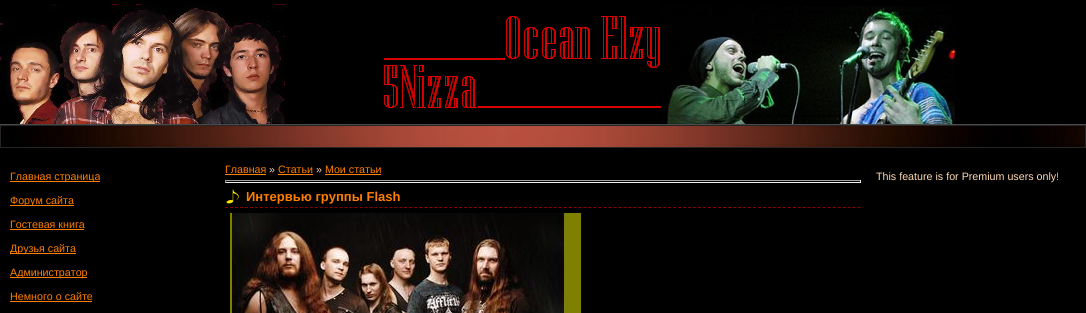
#include <cairo.h>
#include <math.h>
#include <stddef.h>

typedef struct { const char *family; double size; int italic, bold; unsigned color; } style_t;
static cairo_t *ctx;

static void ink(unsigned color) {
    cairo_set_source_rgb(ctx, (color >> 16) / 255.0, (color >> 8 & 255) / 255.0, (color & 255) / 255.0);
}

static void write(double x, double y, const char *s, const style_t *st) {
    cairo_select_font_face(ctx, st->family, st->italic ? CAIRO_FONT_SLANT_ITALIC : CAIRO_FONT_SLANT_NORMAL,
        st->bold ? CAIRO_FONT_WEIGHT_BOLD : CAIRO_FONT_WEIGHT_NORMAL);
    cairo_set_font_size(ctx, st->size);
    ink(st->color);
    cairo_move_to(ctx, x, y);
    cairo_show_text(ctx, s);
}

static void block(double x, double y, double w, double h, unsigned color) {
    ink(color);
    cairo_rectangle(ctx, x, y, w, h);
    cairo_fill(ctx);
}

static void paste(const char *path, double x, double y, double w, double h) {
    cairo_surface_t *image = cairo_image_surface_create_from_png(path);
    cairo_save(ctx);
    cairo_set_source_surface(ctx, image, x, y);
    cairo_rectangle(ctx, x, y, w, h);
    cairo_fill(ctx);
    cairo_restore(ctx);
    cairo_surface_destroy(image);
}

static const style_t s1 = {"Liberation Sans", 10.7, 0, 0, 0xff7f00};
static const style_t s2 = {"Liberation Sans", 10.7, 0, 0, 0xffdbb2};
static const style_t s3 = {"Liberation Sans", 13, 0, 1, 0xff7f00};

int main(void) {
    cairo_surface_t *surface = cairo_image_surface_create(CAIRO_FORMAT_RGB24, 1086, 313);
    ctx = cairo_create(surface);
    cairo_font_options_t *options = cairo_font_options_create();
    cairo_font_options_set_hint_metrics(options, CAIRO_HINT_METRICS_OFF);
    cairo_font_options_set_hint_style(options, CAIRO_HINT_STYLE_NONE);
    cairo_set_font_options(ctx, options);
    cairo_set_miter_limit(ctx, 4);
    ink(0x000000);
    cairo_paint(ctx);
    block(0, 124, 1086, 1, 0x494949);
    paste("pic1.png", 0, 4, 955, 120);
    paste("pic2.png", 3, 126, 1082, 21);
    cairo_rectangle(ctx, 0.5, 125.5, 1085, 22);
    ink(0x262626);
    cairo_set_line_width(ctx, 1);
    cairo_stroke(ctx);
    block(10, 181, 90, 1, 0xff7f00);
    write(10, 180, "Главная страница", &s1);
    block(10, 205, 64, 1, 0xff7f00);
    write(10, 204, "Форум сайта", &s1);
    write(10, 228, "Гостевая книга", &s1);
    block(10, 229, 74, 1, 0xff7f00);
    block(10, 253, 66, 1, 0xff7f00);
    write(10, 252, "Друзья сайта", &s1);
    block(10, 277, 77, 1, 0xff7f00);
    write(10, 276, "Администратор", &s1);
    write(10, 300, "Немного о сайте", &s1);
    block(10, 301, 82, 1, 0xff7f00);
    write(225, 173, "Главная", &s1);
    block(225, 174, 41, 1, 0xff7f00);
    write(269, 173, "»", &s2);
    write(278, 173, "Статьи", &s1);
    block(278, 174, 35, 1, 0xff7f00);
    write(316, 173, "»", &s2);
    write(325, 173, "Мои статьи", &s1);
    block(325, 174, 56, 1, 0xff7f00);
    block(225, 180, 636, 1, 0x9f9f9f);
    block(860, 180, 1, 3, 0xeeeeee);
    block(225, 182, 636, 1, 0xeeeeee);
    block(225, 180, 1, 3, 0x9f9f9f);
    paste("pic3.png", 226, 189, 13, 15);
    write(246, 201, "Интервью группы Flash", &s3);
    cairo_new_path(ctx);
    cairo_move_to(ctx, 225, 207.5);
    cairo_line_to(ctx, 861, 207.5);
    ink(0x8a0000);
    cairo_set_dash(ctx, (double[]){3, 1.98}, 2, 0);
    cairo_stroke(ctx);
    paste("pic4.png", 230, 213, 351, 100);
    write(876, 180, "This feature is for Premium users only!", &s2);
    cairo_surface_write_to_png(surface, "screenshot.png");
    cairo_font_options_destroy(options);
    cairo_destroy(ctx);
    cairo_surface_destroy(surface);
    return 0;
}
